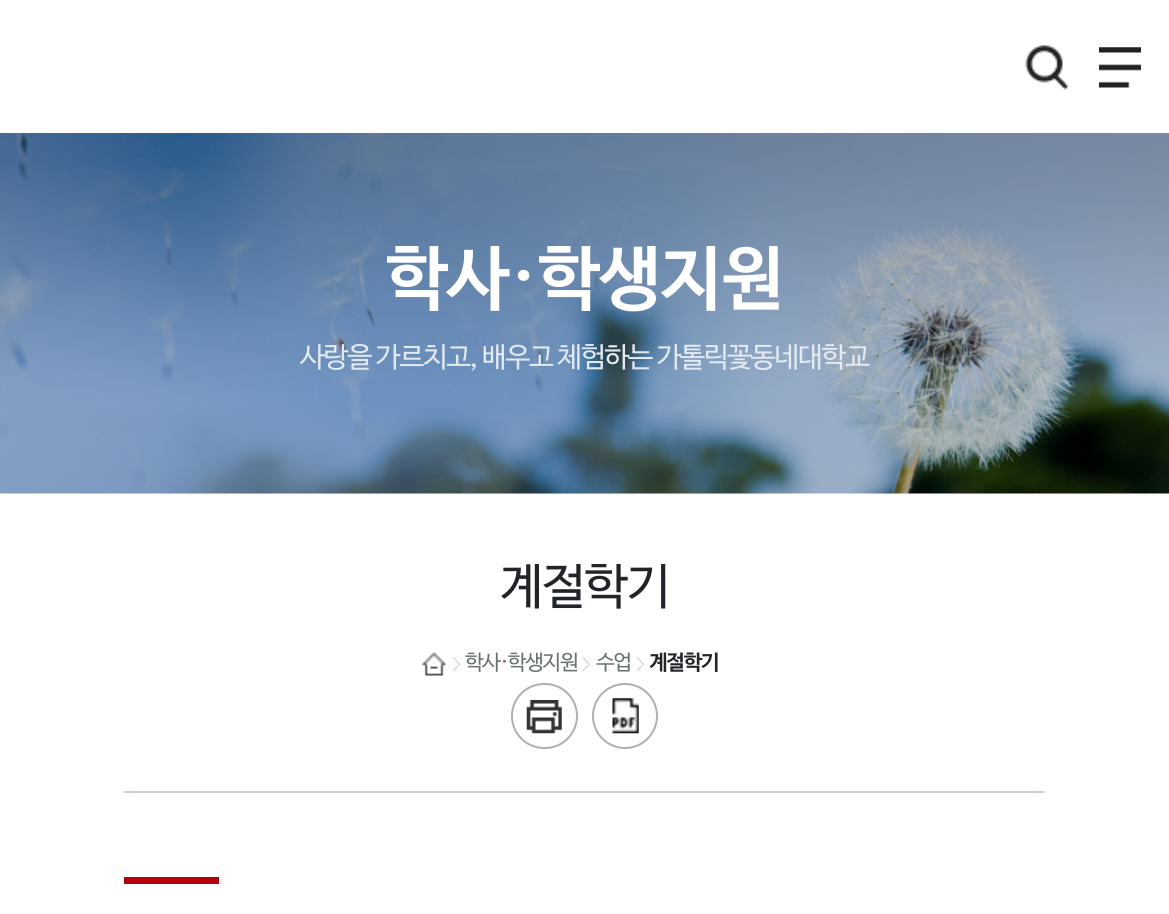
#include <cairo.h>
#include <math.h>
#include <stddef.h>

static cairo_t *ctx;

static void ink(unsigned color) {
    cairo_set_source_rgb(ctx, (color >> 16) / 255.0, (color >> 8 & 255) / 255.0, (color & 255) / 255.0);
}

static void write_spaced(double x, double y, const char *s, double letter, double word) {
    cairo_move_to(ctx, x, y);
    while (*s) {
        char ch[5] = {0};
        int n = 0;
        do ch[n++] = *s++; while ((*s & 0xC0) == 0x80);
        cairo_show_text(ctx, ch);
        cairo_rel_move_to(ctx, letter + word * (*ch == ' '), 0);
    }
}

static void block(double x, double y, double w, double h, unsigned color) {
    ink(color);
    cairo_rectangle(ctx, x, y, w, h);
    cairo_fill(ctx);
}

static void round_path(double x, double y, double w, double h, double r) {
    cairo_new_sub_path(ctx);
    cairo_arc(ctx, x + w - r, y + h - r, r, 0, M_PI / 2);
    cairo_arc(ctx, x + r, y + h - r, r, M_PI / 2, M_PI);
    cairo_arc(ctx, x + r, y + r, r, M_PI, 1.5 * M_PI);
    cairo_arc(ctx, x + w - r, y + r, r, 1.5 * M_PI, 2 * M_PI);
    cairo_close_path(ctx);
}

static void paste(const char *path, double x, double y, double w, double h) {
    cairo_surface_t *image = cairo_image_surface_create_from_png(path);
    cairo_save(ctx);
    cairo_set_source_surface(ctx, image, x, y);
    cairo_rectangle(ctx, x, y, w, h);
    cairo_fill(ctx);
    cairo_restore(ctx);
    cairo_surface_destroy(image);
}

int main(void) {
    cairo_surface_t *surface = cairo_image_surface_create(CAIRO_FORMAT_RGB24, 1169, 914);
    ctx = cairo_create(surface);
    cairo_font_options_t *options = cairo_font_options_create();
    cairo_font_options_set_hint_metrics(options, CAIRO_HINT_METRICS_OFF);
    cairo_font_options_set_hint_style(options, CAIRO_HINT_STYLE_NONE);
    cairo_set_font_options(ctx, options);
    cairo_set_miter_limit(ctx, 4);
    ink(0xffffff);
    cairo_paint(ctx);
    paste("pic1.png", 1025, 45, 43, 45);
    paste("pic2.png", 1099, 47, 42, 41);
    paste("pic3.png", 0, 133, 1169, 361);
    cairo_select_font_face(ctx, "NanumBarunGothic", CAIRO_FONT_SLANT_NORMAL, CAIRO_FONT_WEIGHT_BOLD);
    cairo_set_font_size(ctx, 70);
    ink(0xffffff);
    write_spaced(386, 301, "학사·학생지원", -1.4, 0);
    cairo_select_font_face(ctx, "NanumBarunGothic", CAIRO_FONT_SLANT_NORMAL, CAIRO_FONT_WEIGHT_NORMAL);
    cairo_set_font_size(ctx, 28);
    ink(0xe3e9f0);
    write_spaced(300, 366, "사랑을 가르치고, 배우고 체험하는 가톨릭꽃동네대학교", -1.4, 0);
    block(124, 791, 921, 2, 0xcbd3da);
    cairo_save(ctx);
    cairo_rectangle(ctx, 124, 564, 921, 49);
    cairo_clip(ctx);
    cairo_set_font_size(ctx, 49);
    ink(0x212529);
    write_spaced(500, 602, "계절학기", -1.4, 0);
    cairo_restore(ctx);
    paste("pic4.png", 421, 652, 26, 24);
    paste("pic5.png", 453, 657, 8, 14);
    cairo_set_font_size(ctx, 21);
    ink(0x69736e);
    write_spaced(465, 669, "학사·학생지원", -1.4, 0);
    paste("pic6.png", 582, 657, 8, 14);
    write_spaced(596, 669, "수업", -1.4, 0);
    paste("pic7.png", 637, 657, 7, 14);
    cairo_select_font_face(ctx, "NanumBarunGothic", CAIRO_FONT_SLANT_NORMAL, CAIRO_FONT_WEIGHT_BOLD);
    ink(0x212529);
    write_spaced(649, 669, "계절학기", -1.4, 0);
    round_path(512, 684, 65, 64, 32);
    ink(0xaab1ae);
    cairo_stroke(ctx);
    paste("pic8.png", 526, 700, 36, 34);
    cairo_arc(ctx, 625, 716, 32, 0, 2 * M_PI);
    cairo_stroke(ctx);
    paste("pic9.png", 612, 698, 27, 36);
    block(124, 877, 95, 7, 0xb6000b);
    cairo_surface_write_to_png(surface, "screenshot.png");
    cairo_font_options_destroy(options);
    cairo_destroy(ctx);
    cairo_surface_destroy(surface);
    return 0;
}
